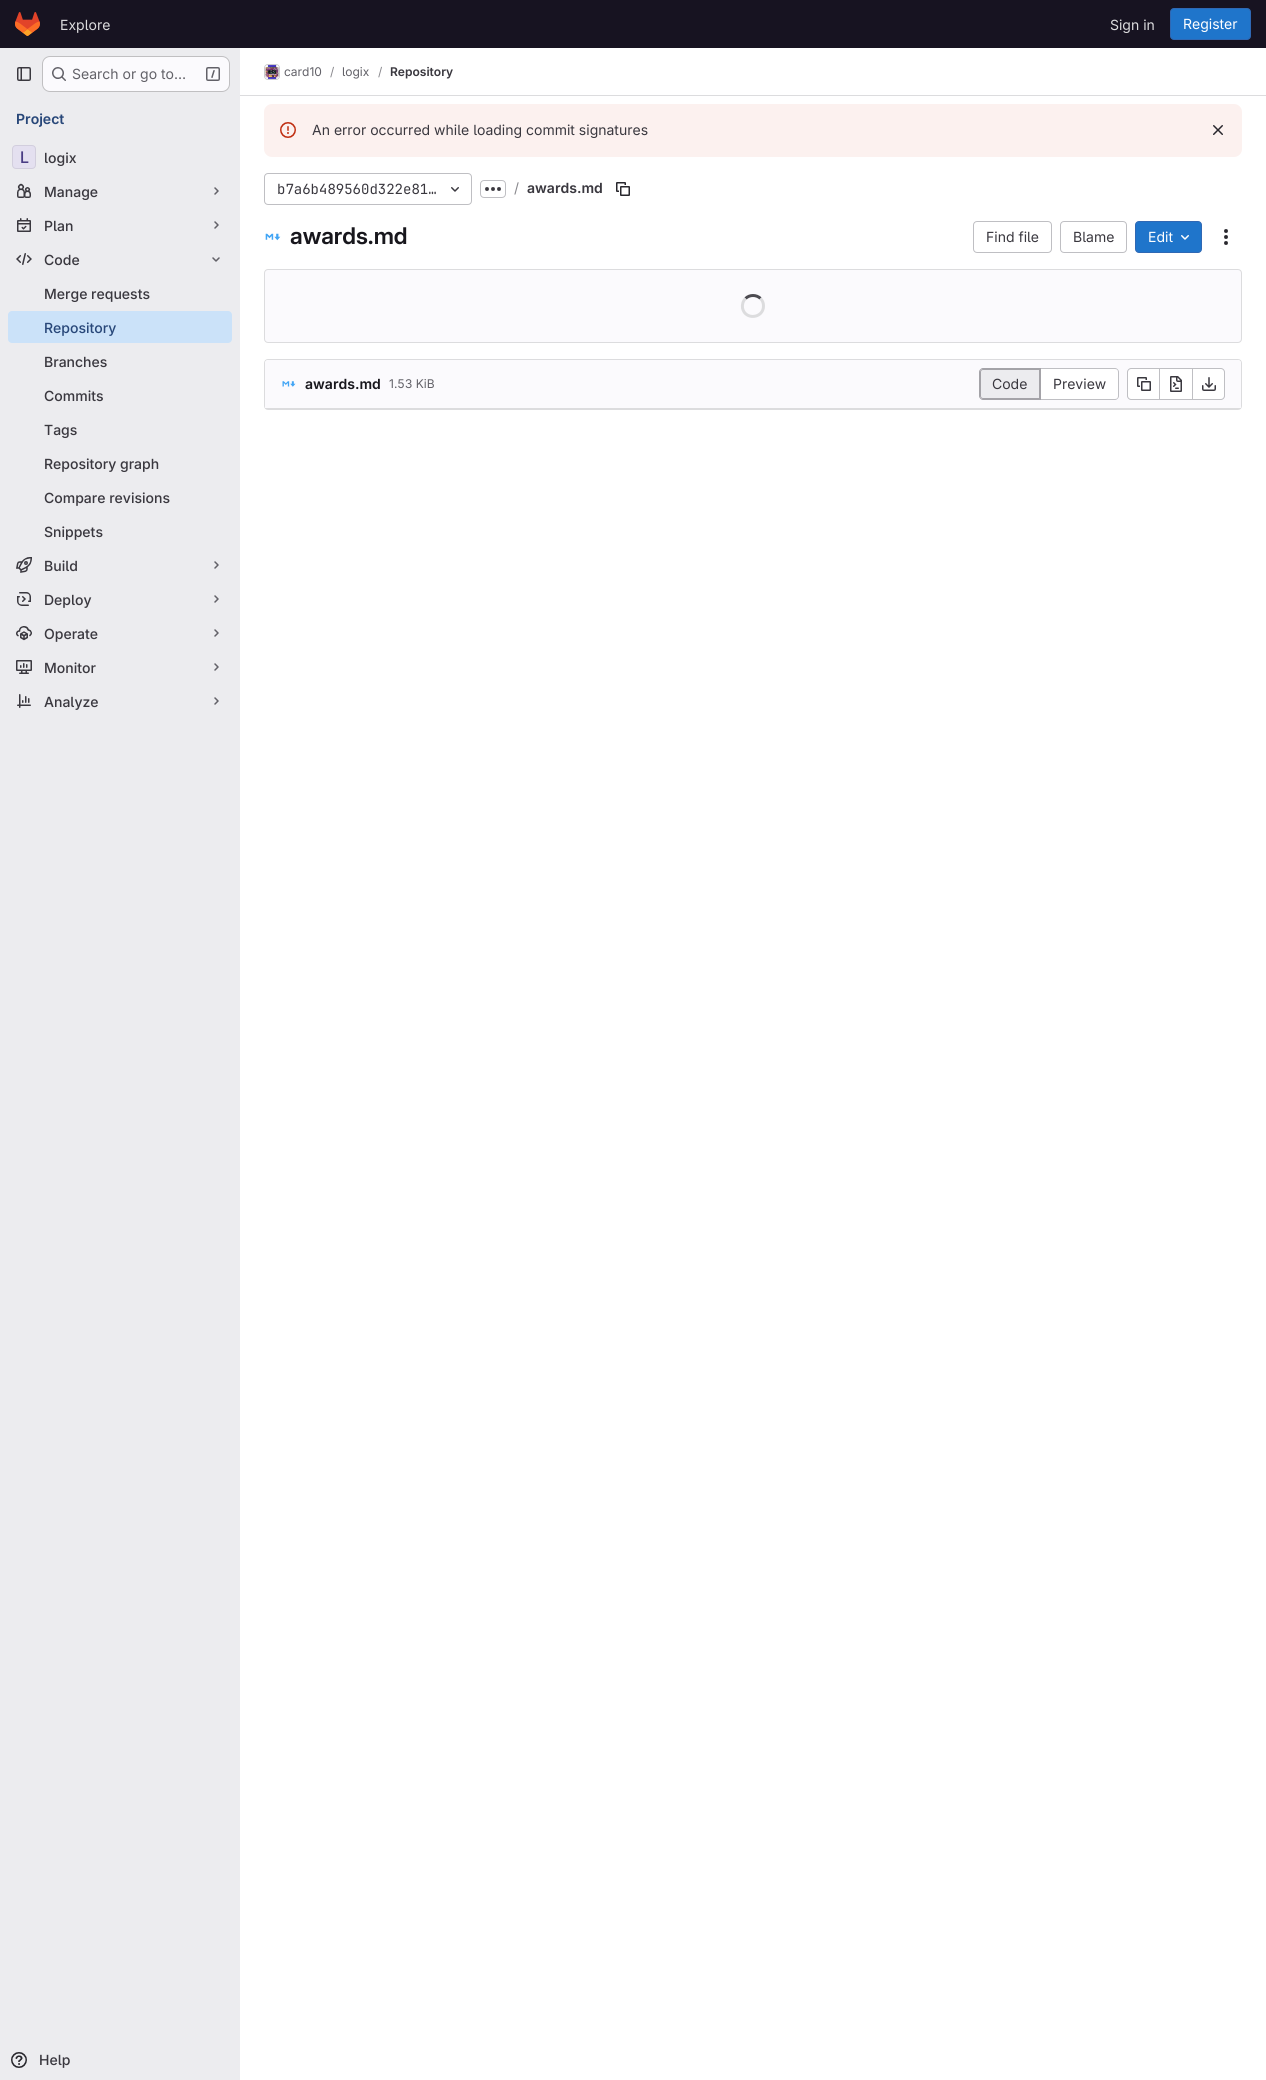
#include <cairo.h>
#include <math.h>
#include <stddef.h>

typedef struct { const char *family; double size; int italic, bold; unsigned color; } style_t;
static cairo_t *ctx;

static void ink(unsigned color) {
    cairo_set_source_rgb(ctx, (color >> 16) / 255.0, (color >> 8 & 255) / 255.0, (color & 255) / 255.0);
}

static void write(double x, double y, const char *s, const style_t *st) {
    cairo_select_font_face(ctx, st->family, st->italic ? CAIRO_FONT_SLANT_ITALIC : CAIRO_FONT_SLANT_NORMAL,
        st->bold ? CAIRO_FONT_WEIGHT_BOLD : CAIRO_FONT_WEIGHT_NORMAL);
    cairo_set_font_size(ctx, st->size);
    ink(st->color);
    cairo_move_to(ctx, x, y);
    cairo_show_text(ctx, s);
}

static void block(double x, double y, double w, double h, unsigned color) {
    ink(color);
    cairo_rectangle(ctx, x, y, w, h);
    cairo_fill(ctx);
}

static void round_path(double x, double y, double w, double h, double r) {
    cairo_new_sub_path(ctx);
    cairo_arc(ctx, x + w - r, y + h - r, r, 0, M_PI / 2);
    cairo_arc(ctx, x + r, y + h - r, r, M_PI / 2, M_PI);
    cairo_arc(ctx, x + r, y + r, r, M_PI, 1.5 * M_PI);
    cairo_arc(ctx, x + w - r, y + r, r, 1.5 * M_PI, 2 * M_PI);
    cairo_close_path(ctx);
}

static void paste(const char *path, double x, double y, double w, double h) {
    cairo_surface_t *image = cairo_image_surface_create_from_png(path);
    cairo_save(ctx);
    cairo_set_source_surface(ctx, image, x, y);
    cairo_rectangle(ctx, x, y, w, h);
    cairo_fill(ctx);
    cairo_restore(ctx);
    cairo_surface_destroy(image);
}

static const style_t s1 = {"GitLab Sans", 14, 0, 0, 0xdcdcde};
static const style_t s2 = {"GitLab Sans", 14, 0, 0, 0xffffff};
static const style_t s3 = {"GitLab Sans", 14, 0, 0, 0x626168};
static const style_t s4 = {"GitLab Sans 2 SemiBold", 14, 0, 0, 0x284779};
static const style_t s5 = {"GitLab Sans 2 Medium", 16, 0, 0, 0x493c83};
static const style_t s6 = {"GitLab Sans Medium", 14, 0, 0, 0x3a383f};
static const style_t s7 = {"GitLab Sans Medium", 14, 0, 0, 0x284779};
static const style_t s8 = {"GitLab Sans", 12, 0, 0, 0x626168};
static const style_t s9 = {"GitLab Sans", 12, 0, 0, 0x89888d};
static const style_t s10 = {"GitLab Sans 2 SemiBold", 12, 0, 0, 0x3a383f};
static const style_t s11 = {"GitLab Sans", 14, 0, 0, 0x3a383f};
static const style_t s12 = {"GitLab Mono", 14, 0, 0, 0x3a383f};
static const style_t s13 = {"GitLab Sans", 14, 0, 0, 0x89888d};
static const style_t s14 = {"GitLab Sans 2 SemiBold", 14, 0, 0, 0x3a383f};
static const style_t s15 = {"GitLab Sans SemiBold", 23, 0, 0, 0x18171d};
static const style_t s16 = {"GitLab Sans 2 SemiBold", 14, 0, 0, 0x18171d};

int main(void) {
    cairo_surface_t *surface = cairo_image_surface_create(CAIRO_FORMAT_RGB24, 1266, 2080);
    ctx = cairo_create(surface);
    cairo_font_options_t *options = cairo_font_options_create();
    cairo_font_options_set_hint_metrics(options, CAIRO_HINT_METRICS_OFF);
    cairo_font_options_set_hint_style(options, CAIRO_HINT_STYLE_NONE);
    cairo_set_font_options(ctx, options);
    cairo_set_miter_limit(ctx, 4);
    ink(0xffffff);
    cairo_paint(ctx);
    block(0, 0, 1266, 48, 0x171321);
    paste("pic1.png", 15, 12, 25, 24);
    write(60, 30, "Explore", &s1);
    write(1110, 30, "Sign in", &s1);
    ink(0x1f75cb);
    round_path(1170.5, 8.5, 80, 31, 3.5);
    cairo_fill_preserve(ctx);
    ink(0x2f68b4);
    cairo_set_line_width(ctx, 1);
    cairo_stroke(ctx);
    write(1183, 29, "Register", &s2);
    block(0, 48, 240, 2032, 0xececef);
    paste("pic2.png", 17, 67, 14, 14);
    ink(0xfbfafd);
    round_path(42, 56, 188, 36, 8);
    cairo_fill(ctx);
    round_path(42.5, 56.5, 187, 35, 7.5);
    cairo_set_source_rgba(ctx, 0.02, 0.02, 0.024, 0.24);
    cairo_stroke(ctx);
    paste("pic3.png", 52, 67, 14, 14);
    write(72, 79, "Search or go to…", &s3);
    paste("pic4.png", 206, 67, 14, 14);
    write(16, 124, "Project", &s4);
    ink(0xe4e0f0);
    round_path(12, 145, 24, 24, 4);
    cairo_fill(ctx);
    round_path(12.5, 145.5, 23, 23, 3.5);
    cairo_set_source_rgba(ctx, 0.02, 0.02, 0.024, 0.08);
    cairo_stroke(ctx);
    write(20, 163, "L", &s5);
    write(44, 163, "logix", &s6);
    paste("pic5.png", 17, 183, 14, 15);
    write(44, 197, "Manage", &s6);
    cairo_new_path(ctx);
    cairo_move_to(ctx, 215, 188);
    cairo_line_to(ctx, 218, 191);
    cairo_line_to(ctx, 215, 194);
    ink(0x626168);
    cairo_set_line_width(ctx, 1.5);
    cairo_set_line_cap(ctx, CAIRO_LINE_CAP_ROUND);
    cairo_set_line_join(ctx, CAIRO_LINE_JOIN_ROUND);
    cairo_stroke(ctx);
    paste("pic6.png", 17, 218, 14, 14);
    write(44, 231, "Plan", &s6);
    cairo_new_path(ctx);
    cairo_move_to(ctx, 215, 222);
    cairo_line_to(ctx, 218, 225);
    cairo_line_to(ctx, 215, 228);
    ink(0x626168);
    cairo_stroke(ctx);
    paste("pic7.png", 16, 253, 16, 12);
    write(44, 265, "Code", &s6);
    cairo_new_path(ctx);
    cairo_move_to(ctx, 219, 258);
    cairo_line_to(ctx, 216, 261);
    cairo_line_to(ctx, 213, 258);
    ink(0x626168);
    cairo_stroke(ctx);
    write(44, 299, "Merge requests", &s6);
    ink(0xcbe2f9);
    round_path(8, 311, 224, 32, 4);
    cairo_fill(ctx);
    write(44, 333, "Repository", &s7);
    write(44, 367, "Branches", &s6);
    write(44, 401, "Commits", &s6);
    write(44, 435, "Tags", &s6);
    write(44, 469, "Repository graph", &s6);
    write(44, 503, "Compare revisions", &s6);
    write(44, 537, "Snippets", &s6);
    paste("pic8.png", 16, 557, 16, 16);
    write(44, 571, "Build", &s6);
    cairo_new_path(ctx);
    cairo_move_to(ctx, 215, 562);
    cairo_line_to(ctx, 218, 565);
    cairo_line_to(ctx, 215, 568);
    ink(0x626168);
    cairo_stroke(ctx);
    paste("pic9.png", 17, 592, 14, 14);
    write(44, 605, "Deploy", &s6);
    cairo_new_path(ctx);
    cairo_move_to(ctx, 215, 596);
    cairo_line_to(ctx, 218, 599);
    cairo_line_to(ctx, 215, 602);
    ink(0x626168);
    cairo_stroke(ctx);
    paste("pic10.png", 16, 626, 16, 15);
    write(44, 639, "Operate", &s6);
    cairo_new_path(ctx);
    cairo_move_to(ctx, 215, 630);
    cairo_line_to(ctx, 218, 633);
    cairo_line_to(ctx, 215, 636);
    ink(0x626168);
    cairo_stroke(ctx);
    paste("pic11.png", 16, 660, 16, 14);
    write(44, 673, "Monitor", &s6);
    cairo_new_path(ctx);
    cairo_move_to(ctx, 215, 664);
    cairo_line_to(ctx, 218, 667);
    cairo_line_to(ctx, 215, 670);
    ink(0x626168);
    cairo_stroke(ctx);
    paste("pic12.png", 17, 694, 14, 14);
    write(44, 707, "Analyze", &s6);
    cairo_new_path(ctx);
    cairo_move_to(ctx, 215, 698);
    cairo_line_to(ctx, 218, 701);
    cairo_line_to(ctx, 215, 704);
    ink(0x626168);
    cairo_stroke(ctx);
    paste("pic13.png", 11, 2052, 16, 16);
    write(39, 2065, "Help", &s6);
    block(240, 95, 1026, 1, 0xdcdcde);
    round_path(264.5, 64.5, 15, 15, 3.5);
    cairo_set_line_width(ctx, 1);
    cairo_set_line_cap(ctx, CAIRO_LINE_CAP_BUTT);
    cairo_set_line_join(ctx, CAIRO_LINE_JOIN_MITER);
    cairo_stroke(ctx);
    paste("pic14.png", 265, 65, 14, 14);
    round_path(264.5, 64.5, 15, 15, 3.5);
    cairo_set_source_rgba(ctx, 0.02, 0.02, 0.024, 0.08);
    cairo_stroke(ctx);
    write(284, 76, "card10", &s8);
    write(330, 76, "/", &s9);
    write(342, 76, "logix", &s8);
    write(378, 76, "/", &s9);
    write(390, 76, "Repository", &s10);
    ink(0xfcf1ef);
    round_path(264, 104, 978, 53, 8);
    cairo_fill(ctx);
    paste("pic15.png", 280, 122, 16, 16);
    write(312, 135, "An error occurred while loading commit signatures", &s11);
    paste("pic16.png", 1213, 125, 10, 10);
    round_path(264.5, 173.5, 207, 31, 3.5);
    ink(0xbfbfc3);
    cairo_stroke(ctx);
    write(277, 194, "b7a6b489560d322e81…", &s12);
    paste("pic17.png", 451, 187, 8, 5);
    round_path(480.5, 180.5, 25, 17, 3.5);
    ink(0xbfbfc3);
    cairo_stroke(ctx);
    paste("pic18.png", 485, 187, 16, 4);
    write(514, 193, "/", &s13);
    write(527, 193, "awards.md", &s14);
    paste("pic19.png", 616, 182, 14, 14);
    paste("pic20.png", 265, 233, 16, 8);
    write(290, 244, "awards.md", &s15);
    round_path(973.5, 221.5, 78, 31, 3.5);
    ink(0xbfbfc3);
    cairo_stroke(ctx);
    write(986, 242, "Find file", &s11);
    round_path(1060.5, 221.5, 66, 31, 3.5);
    ink(0xbfbfc3);
    cairo_stroke(ctx);
    write(1073, 242, "Blame", &s11);
    ink(0x1f75cb);
    round_path(1135.5, 221.5, 66, 31, 3.5);
    cairo_fill_preserve(ctx);
    ink(0x2f68b4);
    cairo_stroke(ctx);
    write(1148, 242, "Edit", &s2);
    paste("pic21.png", 1181, 235, 8, 5);
    paste("pic22.png", 1224, 229, 4, 16);
    ink(0xfbfafd);
    round_path(264.5, 269.5, 977, 73, 3.5);
    cairo_fill_preserve(ctx);
    ink(0xdcdcde);
    cairo_stroke(ctx);
    cairo_new_path(ctx);
    cairo_move_to(ctx, 745.5, 298.5);
    cairo_curve_to(ctx, 749.5, 294.5, 756.5, 294.5, 760.5, 298.5);
    ink(0x4c4b51);
    cairo_set_line_width(ctx, 3);
    cairo_stroke(ctx);
    cairo_new_path(ctx);
    cairo_move_to(ctx, 760.5, 298.5);
    cairo_curve_to(ctx, 762.5, 300.5, 763.5, 303, 763.5, 306);
    cairo_curve_to(ctx, 763.5, 318.5, 745, 320.5, 742.5, 308);
    cairo_curve_to(ctx, 742, 304.5, 743, 301, 745.5, 298.5);
    ink(0xdcdcde);
    cairo_stroke(ctx);
    round_path(264.5, 359.5, 977, 50, 3.5);
    cairo_set_line_width(ctx, 1);
    cairo_stroke(ctx);
    ink(0xfbfafd);
    cairo_new_path(ctx);
    cairo_move_to(ctx, 268, 360);
    cairo_line_to(ctx, 1238, 360);
    cairo_curve_to(ctx, 1239.5, 360, 1241, 361.5, 1241, 363);
    cairo_line_to(ctx, 1241, 409);
    cairo_line_to(ctx, 265, 409);
    cairo_line_to(ctx, 265, 363);
    cairo_curve_to(ctx, 265, 361.5, 266.5, 360, 268, 360);
    cairo_close_path(ctx);
    cairo_fill(ctx);
    block(265, 408, 976, 1, 0xdcdcde);
    paste("pic23.png", 282, 381, 14, 6);
    write(305, 389, "awards.md", &s16);
    write(389, 388, "1.53 KiB", &s8);
    ink(0xececef);
    cairo_new_path(ctx);
    cairo_move_to(ctx, 983, 369.5);
    cairo_line_to(ctx, 1039.5, 369.5);
    cairo_line_to(ctx, 1039.5, 398.5);
    cairo_line_to(ctx, 983, 398.5);
    cairo_curve_to(ctx, 981.5, 398.5, 980.5, 397.5, 980.5, 396);
    cairo_line_to(ctx, 980.5, 372);
    cairo_curve_to(ctx, 980.5, 370.5, 981.5, 369.5, 983, 369.5);
    cairo_close_path(ctx);
    cairo_fill_preserve(ctx);
    ink(0xa4a3a8);
    cairo_stroke(ctx);
    cairo_set_fill_rule(ctx, CAIRO_FILL_RULE_EVEN_ODD);
    cairo_new_path(ctx);
    cairo_move_to(ctx, 983, 368);
    cairo_line_to(ctx, 1040, 368);
    cairo_line_to(ctx, 1040, 400);
    cairo_line_to(ctx, 983, 400);
    cairo_curve_to(ctx, 981, 400, 979, 398, 979, 396);
    cairo_line_to(ctx, 979, 372);
    cairo_curve_to(ctx, 979, 370, 981, 368, 983, 368);
    cairo_close_path(ctx);
    cairo_move_to(ctx, 983, 369);
    cairo_line_to(ctx, 1040, 369);
    cairo_line_to(ctx, 1040, 399);
    cairo_line_to(ctx, 983, 399);
    cairo_curve_to(ctx, 981, 399, 980, 398, 980, 396);
    cairo_line_to(ctx, 980, 372);
    cairo_curve_to(ctx, 980, 370, 981, 369, 983, 369);
    cairo_close_path(ctx);
    cairo_fill(ctx);
    write(992, 389, "Code", &s11);
    ink(0xffffff);
    cairo_new_path(ctx);
    cairo_move_to(ctx, 1041, 369);
    cairo_line_to(ctx, 1115, 369);
    cairo_curve_to(ctx, 1116.5, 369, 1118, 370.5, 1118, 372);
    cairo_line_to(ctx, 1118, 396);
    cairo_curve_to(ctx, 1118, 397.5, 1116.5, 399, 1115, 399);
    cairo_line_to(ctx, 1041, 399);
    cairo_close_path(ctx);
    cairo_fill(ctx);
    ink(0xbfbfc3);
    cairo_new_path(ctx);
    cairo_move_to(ctx, 1041, 368);
    cairo_line_to(ctx, 1115, 368);
    cairo_curve_to(ctx, 1117, 368, 1119, 370, 1119, 372);
    cairo_line_to(ctx, 1119, 396);
    cairo_curve_to(ctx, 1119, 398, 1117, 400, 1115, 400);
    cairo_line_to(ctx, 1041, 400);
    cairo_close_path(ctx);
    cairo_move_to(ctx, 1041, 369);
    cairo_line_to(ctx, 1115, 369);
    cairo_curve_to(ctx, 1117, 369, 1118, 370, 1118, 372);
    cairo_line_to(ctx, 1118, 396);
    cairo_curve_to(ctx, 1118, 398, 1117, 399, 1115, 399);
    cairo_line_to(ctx, 1041, 399);
    cairo_close_path(ctx);
    cairo_fill(ctx);
    block(1040, 368, 1, 32, 0xa4a3a8);
    write(1053, 389, "Preview", &s11);
    ink(0xffffff);
    cairo_new_path(ctx);
    cairo_move_to(ctx, 1131, 369);
    cairo_line_to(ctx, 1159, 369);
    cairo_line_to(ctx, 1159, 399);
    cairo_line_to(ctx, 1131, 399);
    cairo_curve_to(ctx, 1129.5, 399, 1128, 397.5, 1128, 396);
    cairo_line_to(ctx, 1128, 372);
    cairo_curve_to(ctx, 1128, 370.5, 1129.5, 369, 1131, 369);
    cairo_close_path(ctx);
    cairo_fill(ctx);
    ink(0xbfbfc3);
    cairo_new_path(ctx);
    cairo_move_to(ctx, 1131, 368);
    cairo_line_to(ctx, 1159, 368);
    cairo_line_to(ctx, 1159, 400);
    cairo_line_to(ctx, 1131, 400);
    cairo_curve_to(ctx, 1129, 400, 1127, 398, 1127, 396);
    cairo_line_to(ctx, 1127, 372);
    cairo_curve_to(ctx, 1127, 370, 1129, 368, 1131, 368);
    cairo_close_path(ctx);
    cairo_move_to(ctx, 1131, 369);
    cairo_line_to(ctx, 1159, 369);
    cairo_line_to(ctx, 1159, 399);
    cairo_line_to(ctx, 1131, 399);
    cairo_curve_to(ctx, 1129.5, 399, 1128, 397.5, 1128, 396);
    cairo_line_to(ctx, 1128, 372);
    cairo_curve_to(ctx, 1128, 370.5, 1129.5, 369, 1131, 369);
    cairo_close_path(ctx);
    cairo_fill(ctx);
    paste("pic24.png", 1137, 377, 14, 14);
    block(1160, 369, 32, 30, 0xffffff);
    block(1160, 368, 32, 1, 0xbfbfc3);
    block(1160, 399, 32, 1, 0xbfbfc3);
    block(1159, 368, 1, 32, 0xbfbfc3);
    paste("pic25.png", 1170, 376, 12, 16);
    ink(0xffffff);
    cairo_new_path(ctx);
    cairo_move_to(ctx, 1193, 369);
    cairo_line_to(ctx, 1221, 369);
    cairo_curve_to(ctx, 1222.5, 369, 1224, 370.5, 1224, 372);
    cairo_line_to(ctx, 1224, 396);
    cairo_curve_to(ctx, 1224, 397.5, 1222.5, 399, 1221, 399);
    cairo_line_to(ctx, 1193, 399);
    cairo_close_path(ctx);
    cairo_fill(ctx);
    ink(0xbfbfc3);
    cairo_new_path(ctx);
    cairo_move_to(ctx, 1193, 368);
    cairo_line_to(ctx, 1221, 368);
    cairo_curve_to(ctx, 1223, 368, 1225, 370, 1225, 372);
    cairo_line_to(ctx, 1225, 396);
    cairo_curve_to(ctx, 1225, 398, 1223, 400, 1221, 400);
    cairo_line_to(ctx, 1193, 400);
    cairo_close_path(ctx);
    cairo_move_to(ctx, 1193, 369);
    cairo_line_to(ctx, 1221, 369);
    cairo_curve_to(ctx, 1222.5, 369, 1224, 370.5, 1224, 372);
    cairo_line_to(ctx, 1224, 396);
    cairo_curve_to(ctx, 1224, 397.5, 1222.5, 399, 1221, 399);
    cairo_line_to(ctx, 1193, 399);
    cairo_close_path(ctx);
    cairo_fill(ctx);
    block(1192, 368, 1, 32, 0xbfbfc3);
    paste("pic26.png", 1202, 377, 14, 14);
    cairo_surface_write_to_png(surface, "screenshot.png");
    cairo_font_options_destroy(options);
    cairo_destroy(ctx);
    cairo_surface_destroy(surface);
    return 0;
}
